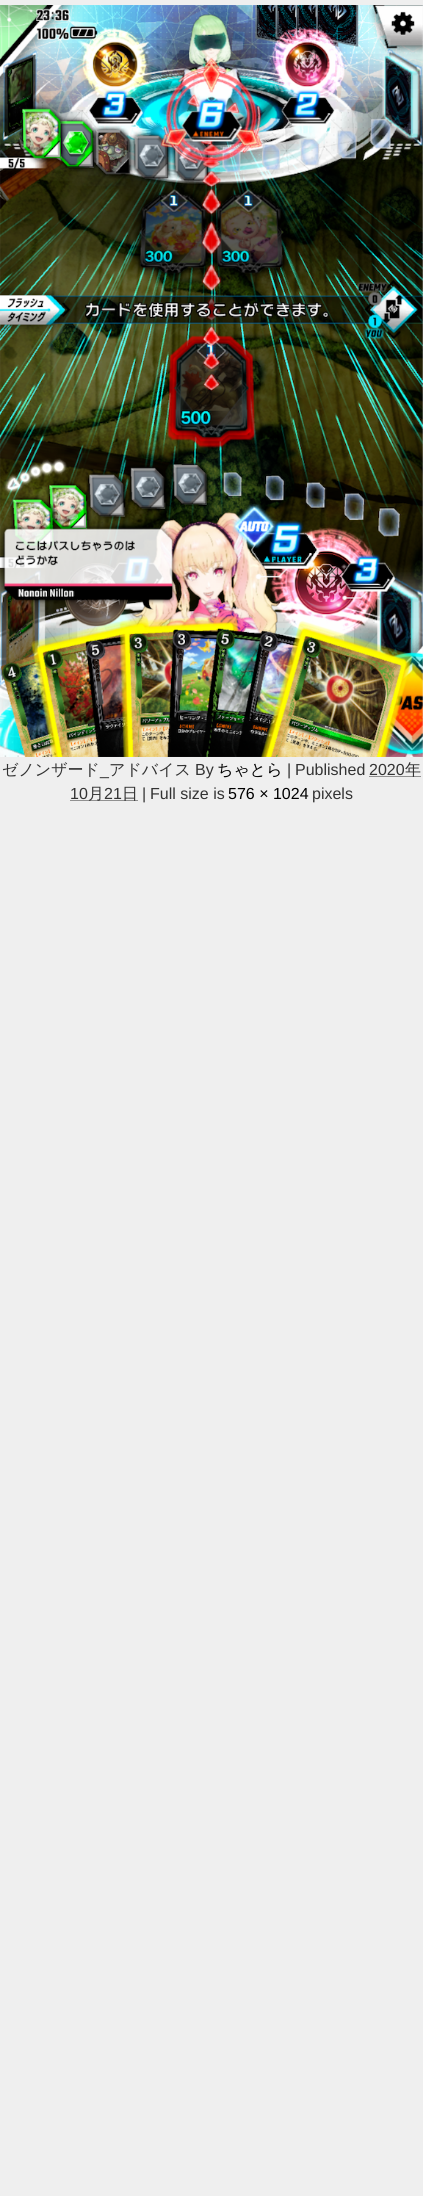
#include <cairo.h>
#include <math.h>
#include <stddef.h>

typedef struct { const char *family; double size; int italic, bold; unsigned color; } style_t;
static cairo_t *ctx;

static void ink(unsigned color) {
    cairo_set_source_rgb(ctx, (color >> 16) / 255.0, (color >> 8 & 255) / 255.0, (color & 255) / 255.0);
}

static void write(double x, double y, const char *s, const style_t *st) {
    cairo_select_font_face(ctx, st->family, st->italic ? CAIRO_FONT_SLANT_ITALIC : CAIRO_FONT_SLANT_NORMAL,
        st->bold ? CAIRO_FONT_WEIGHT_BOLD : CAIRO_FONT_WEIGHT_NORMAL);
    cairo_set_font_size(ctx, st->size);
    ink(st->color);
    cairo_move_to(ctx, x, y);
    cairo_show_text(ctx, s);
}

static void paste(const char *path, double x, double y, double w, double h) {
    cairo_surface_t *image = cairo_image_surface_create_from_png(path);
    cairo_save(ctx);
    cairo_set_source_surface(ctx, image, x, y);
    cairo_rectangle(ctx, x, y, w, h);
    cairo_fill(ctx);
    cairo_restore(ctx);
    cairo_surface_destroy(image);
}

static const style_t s1 = {"WenQuanYi Zen Hei Medium", 16, 0, 0, 0x333333};
static const style_t s2 = {"Liberation Sans", 16, 0, 0, 0x333333};
static const style_t s3 = {"WenQuanYi Zen Hei Medium", 16, 0, 0, 0x000000};
static const style_t s4 = {"Liberation Sans", 16, 0, 0, 0x000000};

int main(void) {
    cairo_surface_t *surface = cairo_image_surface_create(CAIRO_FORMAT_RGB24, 423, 2196);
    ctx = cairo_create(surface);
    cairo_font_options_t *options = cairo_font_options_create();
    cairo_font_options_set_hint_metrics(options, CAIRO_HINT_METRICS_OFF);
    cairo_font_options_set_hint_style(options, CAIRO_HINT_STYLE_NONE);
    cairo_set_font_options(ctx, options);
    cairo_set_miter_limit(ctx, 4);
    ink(0xefefef);
    cairo_paint(ctx);
    paste("pic1.png", 0, 5, 423, 752);
    write(2, 775, "ゼノンザード", &s1);
    write(100, 775, "_", &s2);
    write(109, 775, "アドバイス", &s1);
    write(195, 775, "By", &s2);
    write(217, 775, "ちゃとら", &s3);
    write(287, 775, "|", &s2);
    write(295, 775, "Published", &s2);
    write(369, 775, "2020", &s2);
    cairo_new_path(ctx);
    cairo_move_to(ctx, 369.5, 776.5);
    cairo_line_to(ctx, 421, 776.5);
    cairo_set_line_width(ctx, 1);
    cairo_set_dash(ctx, (double[]){1, 1}, 2, 0);
    cairo_stroke(ctx);
    write(405, 775, "年", &s1);
    write(70, 799, "10", &s2);
    cairo_new_path(ctx);
    cairo_move_to(ctx, 70.5, 800.5);
    cairo_line_to(ctx, 138, 800.5);
    cairo_stroke(ctx);
    write(88, 799, "月", &s1);
    write(104, 799, "21", &s2);
    write(122, 799, "日", &s1);
    write(142, 799, "|", &s2);
    write(150, 799, "Full size is", &s2);
    write(228, 799, "576 × 1024", &s4);
    write(312, 799, "pixels", &s2);
    cairo_surface_write_to_png(surface, "screenshot.png");
    cairo_font_options_destroy(options);
    cairo_destroy(ctx);
    cairo_surface_destroy(surface);
    return 0;
}
